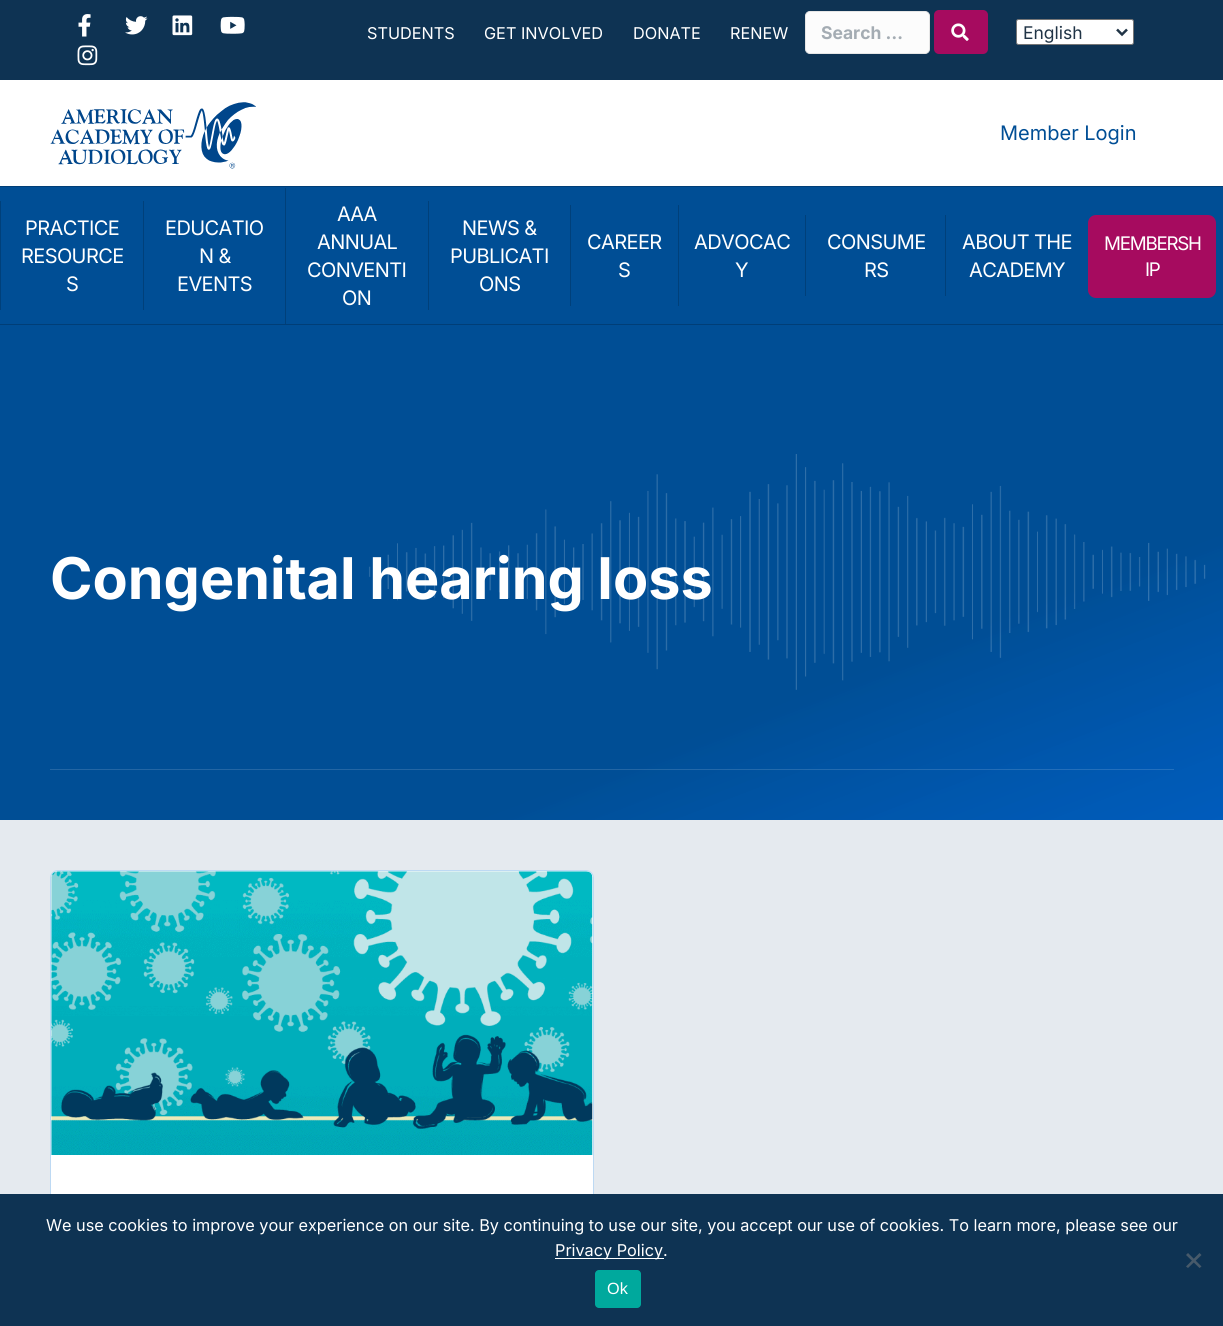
#include <cairo.h>
#include <math.h>
#include <stddef.h>

typedef struct { const char *family; double size; int italic, bold; unsigned color; } style_t;
static cairo_t *ctx;

static void ink(unsigned color) {
    cairo_set_source_rgb(ctx, (color >> 16) / 255.0, (color >> 8 & 255) / 255.0, (color & 255) / 255.0);
}

static void write(double x, double y, const char *s, const style_t *st) {
    cairo_select_font_face(ctx, st->family, st->italic ? CAIRO_FONT_SLANT_ITALIC : CAIRO_FONT_SLANT_NORMAL,
        st->bold ? CAIRO_FONT_WEIGHT_BOLD : CAIRO_FONT_WEIGHT_NORMAL);
    cairo_set_font_size(ctx, st->size);
    ink(st->color);
    cairo_move_to(ctx, x, y);
    cairo_show_text(ctx, s);
}

static void write_spaced(double x, double y, const char *s, double letter, double word) {
    cairo_move_to(ctx, x, y);
    while (*s) {
        char ch[5] = {0};
        int n = 0;
        do ch[n++] = *s++; while ((*s & 0xC0) == 0x80);
        cairo_show_text(ctx, ch);
        cairo_rel_move_to(ctx, letter + word * (*ch == ' '), 0);
    }
}

static void block(double x, double y, double w, double h, unsigned color) {
    ink(color);
    cairo_rectangle(ctx, x, y, w, h);
    cairo_fill(ctx);
}

static void round_path(double x, double y, double w, double h, double r) {
    cairo_new_sub_path(ctx);
    cairo_arc(ctx, x + w - r, y + h - r, r, 0, M_PI / 2);
    cairo_arc(ctx, x + r, y + h - r, r, M_PI / 2, M_PI);
    cairo_arc(ctx, x + r, y + r, r, M_PI, 1.5 * M_PI);
    cairo_arc(ctx, x + w - r, y + r, r, 1.5 * M_PI, 2 * M_PI);
    cairo_close_path(ctx);
}

static void paste(const char *path, double x, double y, double w, double h) {
    cairo_surface_t *image = cairo_image_surface_create_from_png(path);
    cairo_save(ctx);
    cairo_set_source_surface(ctx, image, x, y);
    cairo_rectangle(ctx, x, y, w, h);
    cairo_fill(ctx);
    cairo_restore(ctx);
    cairo_surface_destroy(image);
}

static const style_t s1 = {"Inter", 16.25, 0, 0, 0xffffff};
static const style_t s2 = {"Inter", 17.5, 0, 1, 0xa4acb3};
static const style_t s3 = {"Inter", 17.5, 0, 0, 0x203446};
static const style_t s4 = {"Inter", 20, 0, 0, 0x004e95};
static const style_t s5 = {"Inter", 57.5, 0, 1, 0xffffff};
static const style_t s6 = {"Liberation Sans", 16.25, 0, 0, 0xffffff};

int main(void) {
    cairo_surface_t *surface = cairo_image_surface_create(CAIRO_FORMAT_RGB24, 1223, 1326);
    ctx = cairo_create(surface);
    cairo_font_options_t *options = cairo_font_options_create();
    cairo_font_options_set_hint_metrics(options, CAIRO_HINT_METRICS_OFF);
    cairo_font_options_set_hint_style(options, CAIRO_HINT_STYLE_NONE);
    cairo_set_font_options(ctx, options);
    cairo_set_miter_limit(ctx, 4);
    cairo_pattern_t *gradient;
    ink(0xffffff);
    cairo_paint(ctx);
    block(0, 0, 1223, 80, 0x0e3353);
    paste("pic1.png", 78, 14, 13, 23);
    paste("pic2.png", 125, 16, 23, 19);
    paste("pic3.png", 172, 15, 21, 21);
    paste("pic4.png", 220, 16, 25, 18);
    paste("pic5.png", 77, 45, 21, 21);
    write(367, 39, "STUDENTS", &s1);
    write(484, 39, "GET INVOLVED", &s1);
    write(633, 39, "DONATE", &s1);
    write(730, 39, "RENEW", &s1);
    ink(0xfcfcfc);
    round_path(805.5, 11.5, 124, 42, 4.5);
    cairo_fill_preserve(ctx);
    ink(0xe6e6e6);
    cairo_set_line_width(ctx, 1);
    cairo_stroke(ctx);
    write(821, 39, "Search …", &s2);
    ink(0xa60b5f);
    round_path(934, 10, 54, 44, 5);
    cairo_fill(ctx);
    paste("pic6.png", 951, 23, 18, 18);
    ink(0xffffff);
    round_path(1016.5, 19.5, 117, 25, 2);
    cairo_fill_preserve(ctx);
    ink(0x767676);
    cairo_stroke(ctx);
    cairo_new_path(ctx);
    cairo_move_to(ctx, 1117, 29.5);
    cairo_line_to(ctx, 1122, 34.5);
    cairo_line_to(ctx, 1127, 29.5);
    ink(0x203446);
    cairo_set_line_width(ctx, 2.5);
    cairo_stroke(ctx);
    write(1023, 39, "English", &s3);
    paste("pic7.png", 50, 102, 206, 67);
    write(1000, 140, "Member Login", &s4);
    block(0, 187, 1223, 137, 0x004e95);
    block(0, 186, 1223, 1, 0x003e77);
    block(0, 324, 1223, 1, 0x003e77);
    block(0, 201, 1, 109, 0x00407a);
    ink(0xffffff);
    write_spaced(25, 235, "PRACTICE", -0.6, 0);
    write_spaced(21, 263, "RESOURCE", -0.6, 0);
    write_spaced(66, 291, "S", -0.6, 0);
    block(143, 201, 1, 109, 0x00407a);
    ink(0xffffff);
    write_spaced(165, 235, "EDUCATIO", -0.6, 0);
    write_spaced(199, 263, "N &", -0.6, 0);
    write_spaced(177, 291, "EVENTS", -0.6, 0);
    block(285, 188, 1, 136, 0x00407a);
    ink(0xffffff);
    write_spaced(337, 221, "AAA", -0.6, 0);
    write_spaced(317, 249, "ANNUAL", -0.6, 0);
    write_spaced(307, 277, "CONVENTI", -0.6, 0);
    write_spaced(342, 305, "ON", -0.6, 0);
    block(428, 201, 1, 109, 0x00407a);
    ink(0xffffff);
    write_spaced(462, 235, "NEWS &", -0.6, 0);
    write_spaced(450, 263, "PUBLICATI", -0.6, 0);
    write_spaced(479, 291, "ONS", -0.6, 0);
    block(570, 205, 1, 101, 0x00407a);
    ink(0xffffff);
    write_spaced(587, 249, "CAREER", -0.6, 0);
    write_spaced(618, 277, "S", -0.6, 0);
    block(678, 205, 1, 101, 0x00407a);
    ink(0xffffff);
    write_spaced(694, 249, "ADVOCAC", -0.6, 0);
    write_spaced(735, 277, "Y", -0.6, 0);
    block(805, 215, 1, 81, 0x00407a);
    ink(0xffffff);
    write_spaced(827, 249, "CONSUME", -0.6, 0);
    write_spaced(864, 277, "RS", -0.6, 0);
    block(945, 215, 1, 81, 0x00407a);
    ink(0xffffff);
    write_spaced(962, 249, "ABOUT THE", -0.6, 0);
    write_spaced(969, 277, "ACADEMY", -0.6, 0);
    ink(0xa60b5f);
    round_path(1088, 215, 128, 83, 8);
    cairo_fill(ctx);
    cairo_set_font_size(ctx, 18.75);
    ink(0xffffff);
    write_spaced(1104, 250, "MEMBERSH", -1.25, 0);
    write_spaced(1145, 276, "IP", -1.25, 0);
    block(0, 325, 1223, 495, 0x004e95);
    paste("pic8.png", 368, 454, 838, 236);
    gradient = cairo_pattern_create_linear(450, 152, 773, 993);
    cairo_pattern_add_color_stop_rgba(gradient, 0.7, 0, 0.306, 0.584, 0.82);
    cairo_pattern_add_color_stop_rgba(gradient, 1, 0, 0.384, 0.8, 0.71);
    cairo_set_source(ctx, gradient);
    cairo_pattern_destroy(gradient);
    cairo_rectangle(ctx, 368, 454, 855, 366);
    cairo_fill(ctx);
    write(50, 599, "Congenital hearing loss", &s5);
    cairo_set_source_rgba(ctx, 1, 1, 1, 0.14);
    cairo_rectangle(ctx, 50, 769, 1124, 1);
    cairo_fill(ctx);
    block(0, 820, 1223, 374, 0xe5eaef);
    ink(0xffffff);
    round_path(50.5, 870.5, 543, 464, 7.5);
    cairo_fill_preserve(ctx);
    ink(0xbdd9f3);
    cairo_set_line_width(ctx, 1);
    cairo_stroke(ctx);
    paste("pic9.png", 51, 871, 542, 284);
    block(0, 1194, 1223, 132, 0x0e3353);
    write(46, 1231, "We use cookies to improve your experience on our site. By continuing to use our site, you accept our use of cookies. To learn more, please see our", &s1);
    block(555, 1258, 109, 1, 0xffffff);
    write(555, 1256, "Privacy Policy.", &s1);
    ink(0x475a6a);
    cairo_new_path(ctx);
    cairo_move_to(ctx, 1199.5, 1253);
    cairo_line_to(ctx, 1201.5, 1255);
    cairo_line_to(ctx, 1188, 1268);
    cairo_line_to(ctx, 1186, 1266.5);
    cairo_close_path(ctx);
    cairo_fill(ctx);
    cairo_new_path(ctx);
    cairo_move_to(ctx, 1186, 1255);
    cairo_line_to(ctx, 1188, 1253);
    cairo_line_to(ctx, 1201.5, 1266.5);
    cairo_line_to(ctx, 1199.5, 1268);
    cairo_close_path(ctx);
    cairo_fill(ctx);
    ink(0x00a99d);
    round_path(595, 1270, 46, 38, 4);
    cairo_fill(ctx);
    write(607, 1294, "Ok", &s6);
    cairo_surface_write_to_png(surface, "screenshot.png");
    cairo_font_options_destroy(options);
    cairo_destroy(ctx);
    cairo_surface_destroy(surface);
    return 0;
}
